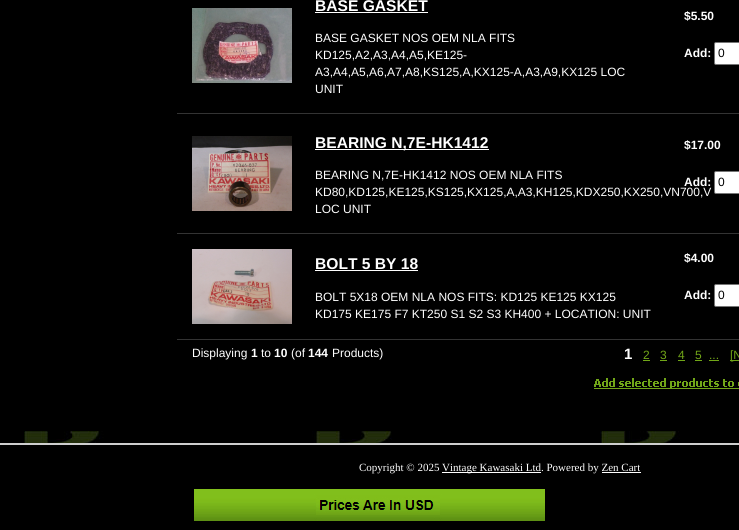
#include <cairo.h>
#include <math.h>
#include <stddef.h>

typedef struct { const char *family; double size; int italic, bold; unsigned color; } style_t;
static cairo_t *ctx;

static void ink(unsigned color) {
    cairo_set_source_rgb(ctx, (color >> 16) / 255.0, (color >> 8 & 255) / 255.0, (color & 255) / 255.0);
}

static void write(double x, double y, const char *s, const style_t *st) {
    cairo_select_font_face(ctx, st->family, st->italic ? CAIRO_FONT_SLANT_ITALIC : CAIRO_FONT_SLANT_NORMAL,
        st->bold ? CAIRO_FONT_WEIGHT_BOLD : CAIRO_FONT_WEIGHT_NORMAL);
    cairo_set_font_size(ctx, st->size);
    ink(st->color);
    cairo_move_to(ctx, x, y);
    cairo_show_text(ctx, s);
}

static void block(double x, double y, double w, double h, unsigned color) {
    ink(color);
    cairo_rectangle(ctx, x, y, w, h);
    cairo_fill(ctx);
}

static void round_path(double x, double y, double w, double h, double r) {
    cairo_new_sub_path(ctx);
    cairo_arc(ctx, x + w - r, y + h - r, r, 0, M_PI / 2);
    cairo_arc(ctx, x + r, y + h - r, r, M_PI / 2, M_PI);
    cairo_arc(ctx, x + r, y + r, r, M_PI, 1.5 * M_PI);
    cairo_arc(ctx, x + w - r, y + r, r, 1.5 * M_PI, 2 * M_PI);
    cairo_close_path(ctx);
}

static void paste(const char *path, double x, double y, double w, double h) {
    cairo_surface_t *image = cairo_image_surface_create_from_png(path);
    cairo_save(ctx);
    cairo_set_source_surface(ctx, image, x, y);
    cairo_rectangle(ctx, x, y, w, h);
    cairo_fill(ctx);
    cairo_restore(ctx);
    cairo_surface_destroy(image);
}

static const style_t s1 = {"Liberation Sans", 15.6, 0, 1, 0xffffff};
static const style_t s2 = {"Liberation Sans", 12, 0, 0, 0xffffff};
static const style_t s3 = {"Liberation Sans", 12, 0, 1, 0xffffff};
static const style_t s4 = {"Liberation Sans", 12, 0, 0, 0x000000};
static const style_t s5 = {"Liberation Sans", 15, 0, 1, 0xffffff};
static const style_t s6 = {"Liberation Sans", 12, 0, 0, 0x71a618};
static const style_t s7 = {"Liberation Serif", 11, 0, 0, 0xffffff};

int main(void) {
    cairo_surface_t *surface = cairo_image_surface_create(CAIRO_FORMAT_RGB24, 739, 530);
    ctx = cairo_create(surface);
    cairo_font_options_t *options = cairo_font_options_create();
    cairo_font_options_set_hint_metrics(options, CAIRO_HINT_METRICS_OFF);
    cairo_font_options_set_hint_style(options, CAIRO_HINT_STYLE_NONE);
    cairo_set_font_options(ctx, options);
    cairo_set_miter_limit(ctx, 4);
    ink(0x000000);
    cairo_paint(ctx);
    paste("pic1.png", 16, 418, 723, 25);
    block(177, 113, 562, 1, 0x333333);
    paste("pic2.png", 192, 8, 100, 75);
    write(315, 11, "BASE GASKET", &s1);
    block(315, 12, 113, 1, 0xffffff);
    write(315, 42, "BASE GASKET NOS OEM NLA FITS", &s2);
    write(315, 59, "KD125,A2,A3,A4,A5,KE125-", &s2);
    write(315, 76, "A3,A4,A5,A6,A7,A8,KS125,A,KX125-A,A3,A9,KX125 LOC", &s2);
    write(315, 93, "UNIT", &s2);
    write(684, 20, "$5.50", &s3);
    write(684, 57, "Add:", &s3);
    round_path(714.5, 42.5, 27, 22, 1.5);
    cairo_fill_preserve(ctx);
    ink(0x767676);
    cairo_set_line_width(ctx, 1);
    cairo_stroke(ctx);
    write(718, 57, "0", &s4);
    block(177, 233, 562, 1, 0x333333);
    paste("pic3.png", 192, 136, 100, 75);
    block(315, 149, 174, 1, 0xffffff);
    write(315, 148, "BEARING N,7E-HK1412", &s1);
    write(315, 179, "BEARING N,7E-HK1412 NOS OEM NLA FITS", &s2);
    write(315, 196, "KD80,KD125,KE125,KS125,KX125,A,A3,KH125,KDX250,KX250,VN700,V", &s2);
    write(315, 213, "LOC UNIT", &s2);
    write(684, 149, "$17.00", &s3);
    write(684, 186, "Add:", &s3);
    round_path(714.5, 171.5, 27, 22, 1.5);
    cairo_fill_preserve(ctx);
    ink(0x767676);
    cairo_stroke(ctx);
    write(718, 186, "0", &s4);
    block(177, 339, 562, 1, 0x333333);
    paste("pic4.png", 192, 249, 100, 75);
    write(315, 269, "BOLT 5 BY 18", &s1);
    block(315, 270, 103, 1, 0xffffff);
    write(315, 301, "BOLT 5X18 OEM NLA NOS FITS: KD125 KE125 KX125", &s2);
    write(315, 318, "KD175 KE175 F7 KT250 S1 S2 S3 KH400 + LOCATION: UNIT", &s2);
    write(684, 262, "$4.00", &s3);
    write(684, 299, "Add:", &s3);
    round_path(714.5, 284.5, 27, 22, 1.5);
    cairo_fill_preserve(ctx);
    ink(0x767676);
    cairo_stroke(ctx);
    write(718, 299, "0", &s4);
    write(192, 357, "Displaying", &s2);
    write(251, 357, "1", &s3);
    write(261, 357, "to", &s2);
    write(274, 357, "10", &s3);
    write(291, 357, "(of", &s2);
    write(308, 357, "144", &s3);
    write(332, 357, "Products)", &s2);
    write(624, 359, "1", &s5);
    write(643, 359, "2", &s6);
    block(643, 360, 7, 1, 0x71a618);
    write(660, 359, "3", &s6);
    block(660, 360, 7, 1, 0x71a618);
    write(678, 359, "4", &s6);
    block(678, 360, 7, 1, 0x71a618);
    write(695, 359, "5", &s6);
    block(695, 360, 7, 1, 0x71a618);
    write(709, 359, "...", &s6);
    block(709, 360, 10, 1, 0x71a618);
    block(730, 360, 9, 1, 0x71a618);
    write(730, 359, "[N", &s6);
    paste("pic5.png", 594, 378, 145, 11);
    block(0, 443, 739, 2, 0xcecece);
    write(359, 471, "Copyright © 2025", &s7);
    block(442, 472, 99, 1, 0xffffff);
    write(442, 471, "Vintage Kawasaki Ltd. Powered by Zen Cart", &s7);
    block(602, 472, 39, 1, 0xffffff);
    paste("pic6.png", 194, 489, 351, 32);
    cairo_surface_write_to_png(surface, "screenshot.png");
    cairo_font_options_destroy(options);
    cairo_destroy(ctx);
    cairo_surface_destroy(surface);
    return 0;
}
